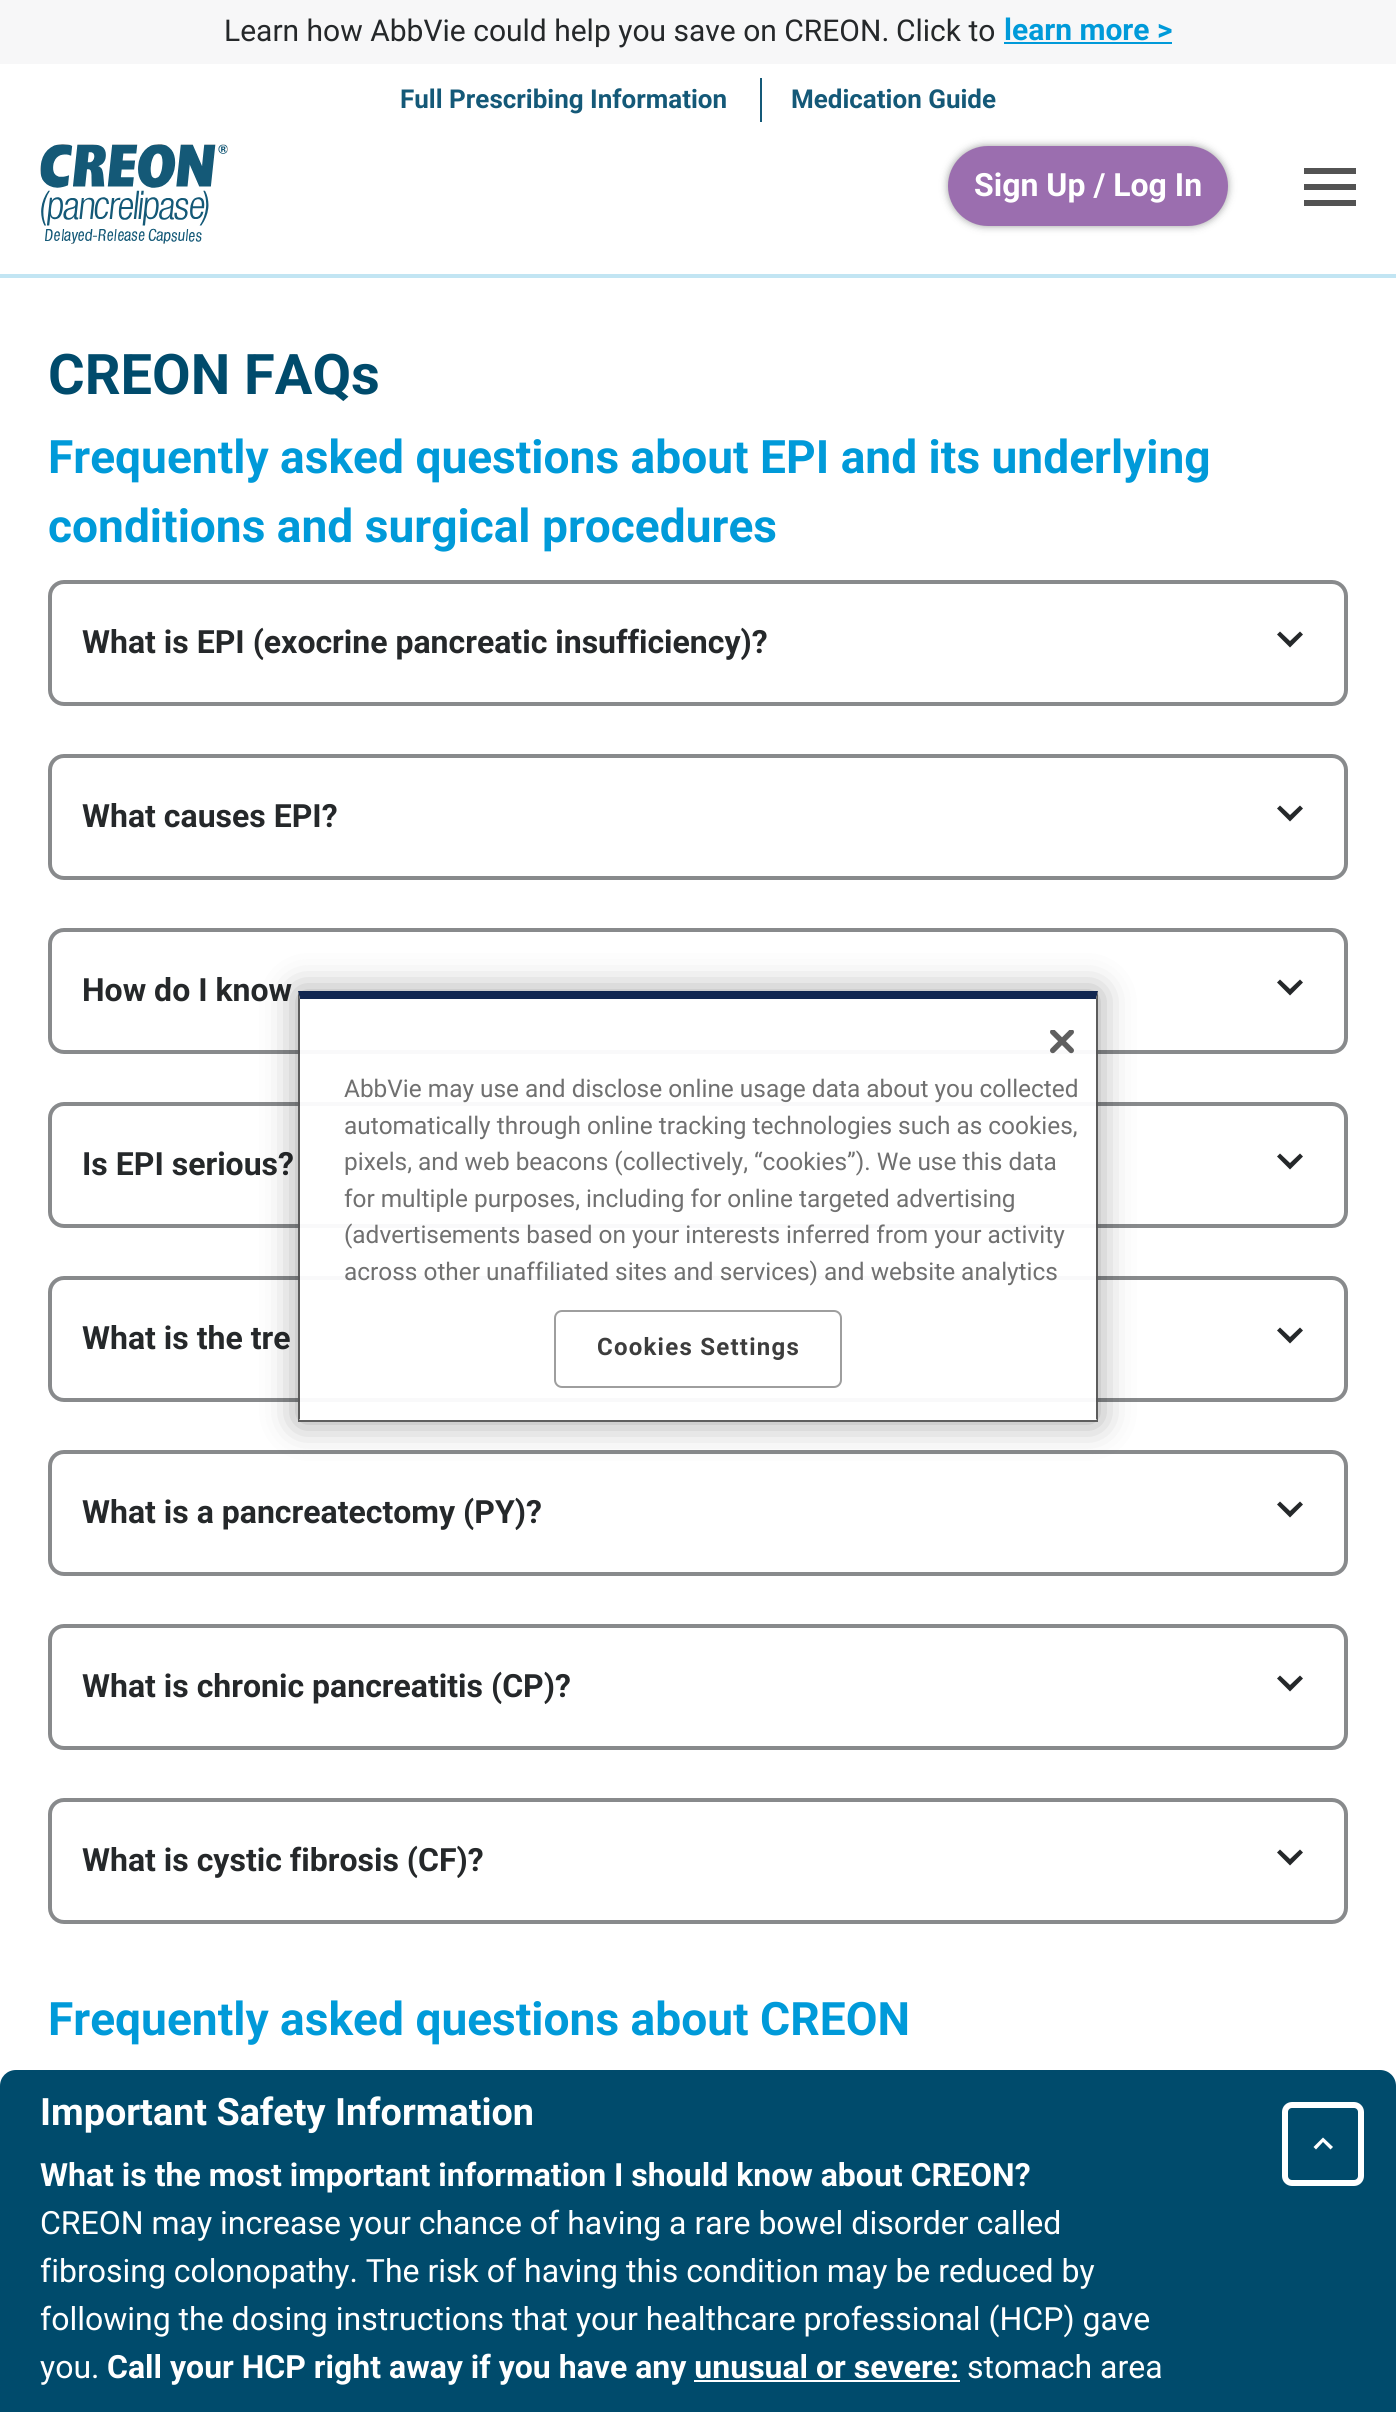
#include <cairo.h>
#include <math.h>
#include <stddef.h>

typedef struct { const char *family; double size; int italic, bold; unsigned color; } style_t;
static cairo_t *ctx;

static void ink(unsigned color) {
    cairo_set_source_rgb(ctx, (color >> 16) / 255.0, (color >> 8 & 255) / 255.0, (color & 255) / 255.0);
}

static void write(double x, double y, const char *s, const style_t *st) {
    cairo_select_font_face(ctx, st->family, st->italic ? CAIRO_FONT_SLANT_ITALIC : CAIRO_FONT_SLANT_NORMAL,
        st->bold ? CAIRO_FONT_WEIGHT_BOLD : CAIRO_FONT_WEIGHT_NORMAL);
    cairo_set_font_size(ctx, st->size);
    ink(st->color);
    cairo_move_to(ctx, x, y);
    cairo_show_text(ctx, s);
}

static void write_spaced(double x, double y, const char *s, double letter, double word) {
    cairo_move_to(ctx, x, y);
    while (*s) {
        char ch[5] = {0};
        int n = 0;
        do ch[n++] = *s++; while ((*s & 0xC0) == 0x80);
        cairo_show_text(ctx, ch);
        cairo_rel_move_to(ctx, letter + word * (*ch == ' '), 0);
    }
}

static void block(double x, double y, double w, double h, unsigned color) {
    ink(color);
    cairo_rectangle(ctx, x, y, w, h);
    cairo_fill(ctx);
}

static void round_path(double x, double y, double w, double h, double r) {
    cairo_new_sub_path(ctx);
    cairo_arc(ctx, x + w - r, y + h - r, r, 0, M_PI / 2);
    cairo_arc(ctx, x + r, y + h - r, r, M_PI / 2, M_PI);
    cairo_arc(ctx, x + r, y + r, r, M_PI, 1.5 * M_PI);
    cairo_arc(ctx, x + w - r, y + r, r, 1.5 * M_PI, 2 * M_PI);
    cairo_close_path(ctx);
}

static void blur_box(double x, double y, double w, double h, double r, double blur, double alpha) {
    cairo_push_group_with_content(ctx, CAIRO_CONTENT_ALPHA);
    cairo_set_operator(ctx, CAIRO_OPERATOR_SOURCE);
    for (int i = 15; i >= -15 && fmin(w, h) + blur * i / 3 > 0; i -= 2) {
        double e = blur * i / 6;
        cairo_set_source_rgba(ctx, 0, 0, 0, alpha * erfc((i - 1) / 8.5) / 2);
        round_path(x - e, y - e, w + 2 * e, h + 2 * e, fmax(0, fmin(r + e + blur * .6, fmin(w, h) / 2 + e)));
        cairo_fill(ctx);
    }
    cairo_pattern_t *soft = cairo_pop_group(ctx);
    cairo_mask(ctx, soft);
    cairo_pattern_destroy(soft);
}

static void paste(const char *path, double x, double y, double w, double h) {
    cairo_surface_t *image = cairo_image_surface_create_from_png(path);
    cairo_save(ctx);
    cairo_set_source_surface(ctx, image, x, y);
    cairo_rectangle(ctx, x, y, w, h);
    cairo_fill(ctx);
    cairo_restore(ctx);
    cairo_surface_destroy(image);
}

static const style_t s1 = {"Roboto", 30, 0, 0, 0x25282a};
static const style_t s2 = {"Roboto", 30, 0, 1, 0x009ad9};
static const style_t s3 = {"Roboto", 26, 0, 1, 0x145978};
static const style_t s4 = {"Roboto", 32, 0, 1, 0xffffff};
static const style_t s5 = {"Roboto", 56, 0, 1, 0x004b6c};
static const style_t s6 = {"Roboto", 46.1, 0, 1, 0x009ad9};
static const style_t s7 = {"Roboto", 32, 0, 1, 0x25282a};
static const style_t s8 = {"Roboto", 37.75, 0, 1, 0xffffff};
static const style_t s9 = {"Roboto", 32, 0, 0, 0xffffff};
static const style_t s10 = {"Roboto", 24.4, 0, 0, 0x707070};

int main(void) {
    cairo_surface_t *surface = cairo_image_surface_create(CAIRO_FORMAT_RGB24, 1396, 2412);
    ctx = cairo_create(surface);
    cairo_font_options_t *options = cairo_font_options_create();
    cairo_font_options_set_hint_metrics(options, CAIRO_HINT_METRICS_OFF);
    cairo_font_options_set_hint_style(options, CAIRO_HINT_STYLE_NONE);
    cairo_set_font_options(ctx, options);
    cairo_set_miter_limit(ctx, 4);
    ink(0xffffff);
    cairo_paint(ctx);
    block(0, 0, 1396, 64, 0xf7f7f8);
    write(224, 41, "Learn how AbbVie could help you save on CREON.", &s1);
    write(896, 41, "Click to", &s1);
    write(1004, 40, "learn more >", &s2);
    block(1004, 42, 168, 2, 0x009ad9);
    block(0, 274, 1396, 4, 0xc2e5f3);
    write(400, 108, "Full Prescribing Information", &s3);
    block(760, 78, 2, 44, 0x145978);
    write(791, 108, "Medication Guide", &s3);
    paste("pic1.png", 40, 144, 188, 100);
    ink(0x393c3d);
    blur_box(948, 146, 280, 80, 40, 4, 0.5);
    ink(0x9b6eaf);
    round_path(949, 147, 278, 78, 39);
    cairo_fill_preserve(ctx);
    cairo_stroke(ctx);
    write(974, 196, "Sign Up / Log In", &s4);
    block(1304, 168, 52, 6, 0x535353);
    block(1304, 184, 52, 6, 0x535353);
    block(1304, 200, 52, 6, 0x535353);
    write(48, 394, "CREON FAQs", &s5);
    write(48, 473, "Frequently asked questions about EPI and its underlying", &s6);
    write(48, 542, "conditions and surgical procedures", &s6);
    round_path(50, 582, 1296, 122, 14);
    ink(0x888a8c);
    cairo_set_line_width(ctx, 4);
    cairo_stroke(ctx);
    write(82, 653, "What is EPI (exocrine pancreatic insufficiency)?", &s7);
    cairo_new_path(ctx);
    cairo_move_to(ctx, 1280, 631.5);
    cairo_line_to(ctx, 1290, 641);
    cairo_line_to(ctx, 1300, 631.5);
    cairo_line_to(ctx, 1303, 634.5);
    cairo_line_to(ctx, 1290, 647.5);
    cairo_line_to(ctx, 1277, 634.5);
    cairo_close_path(ctx);
    cairo_fill(ctx);
    round_path(50, 756, 1296, 122, 14);
    ink(0x888a8c);
    cairo_stroke(ctx);
    write(82, 827, "What causes EPI?", &s7);
    cairo_new_path(ctx);
    cairo_move_to(ctx, 1280, 805.5);
    cairo_line_to(ctx, 1290, 815);
    cairo_line_to(ctx, 1300, 805.5);
    cairo_line_to(ctx, 1303, 808.5);
    cairo_line_to(ctx, 1290, 821.5);
    cairo_line_to(ctx, 1277, 808.5);
    cairo_close_path(ctx);
    cairo_fill(ctx);
    round_path(50, 930, 1296, 122, 14);
    ink(0x888a8c);
    cairo_stroke(ctx);
    write(82, 1001, "How do I know", &s7);
    cairo_new_path(ctx);
    cairo_move_to(ctx, 1280, 979.5);
    cairo_line_to(ctx, 1290, 989);
    cairo_line_to(ctx, 1300, 979.5);
    cairo_line_to(ctx, 1303, 982.5);
    cairo_line_to(ctx, 1290, 995.5);
    cairo_line_to(ctx, 1277, 982.5);
    cairo_close_path(ctx);
    cairo_fill(ctx);
    round_path(50, 1104, 1296, 122, 14);
    ink(0x888a8c);
    cairo_stroke(ctx);
    write(82, 1175, "Is EPI serious?", &s7);
    cairo_new_path(ctx);
    cairo_move_to(ctx, 1280, 1153.5);
    cairo_line_to(ctx, 1290, 1163);
    cairo_line_to(ctx, 1300, 1153.5);
    cairo_line_to(ctx, 1303, 1156.5);
    cairo_line_to(ctx, 1290, 1169.5);
    cairo_line_to(ctx, 1277, 1156.5);
    cairo_close_path(ctx);
    cairo_fill(ctx);
    round_path(50, 1278, 1296, 122, 14);
    ink(0x888a8c);
    cairo_stroke(ctx);
    write(82, 1349, "What is the tre", &s7);
    cairo_new_path(ctx);
    cairo_move_to(ctx, 1280, 1327.5);
    cairo_line_to(ctx, 1290, 1337);
    cairo_line_to(ctx, 1300, 1327.5);
    cairo_line_to(ctx, 1303, 1330.5);
    cairo_line_to(ctx, 1290, 1343.5);
    cairo_line_to(ctx, 1277, 1330.5);
    cairo_close_path(ctx);
    cairo_fill(ctx);
    round_path(50, 1452, 1296, 122, 14);
    ink(0x888a8c);
    cairo_stroke(ctx);
    write(82, 1523, "What is a pancreatectomy (PY)?", &s7);
    cairo_new_path(ctx);
    cairo_move_to(ctx, 1280, 1501.5);
    cairo_line_to(ctx, 1290, 1511);
    cairo_line_to(ctx, 1300, 1501.5);
    cairo_line_to(ctx, 1303, 1504.5);
    cairo_line_to(ctx, 1290, 1517.5);
    cairo_line_to(ctx, 1277, 1504.5);
    cairo_close_path(ctx);
    cairo_fill(ctx);
    round_path(50, 1626, 1296, 122, 14);
    ink(0x888a8c);
    cairo_stroke(ctx);
    write(82, 1697, "What is chronic pancreatitis (CP)?", &s7);
    cairo_new_path(ctx);
    cairo_move_to(ctx, 1280, 1675.5);
    cairo_line_to(ctx, 1290, 1685);
    cairo_line_to(ctx, 1300, 1675.5);
    cairo_line_to(ctx, 1303, 1678.5);
    cairo_line_to(ctx, 1290, 1691.5);
    cairo_line_to(ctx, 1277, 1678.5);
    cairo_close_path(ctx);
    cairo_fill(ctx);
    round_path(50, 1800, 1296, 122, 14);
    ink(0x888a8c);
    cairo_stroke(ctx);
    write(82, 1871, "What is cystic fibrosis (CF)?", &s7);
    cairo_new_path(ctx);
    cairo_move_to(ctx, 1280, 1849.5);
    cairo_line_to(ctx, 1290, 1859);
    cairo_line_to(ctx, 1300, 1849.5);
    cairo_line_to(ctx, 1303, 1852.5);
    cairo_line_to(ctx, 1290, 1865.5);
    cairo_line_to(ctx, 1277, 1852.5);
    cairo_close_path(ctx);
    cairo_fill(ctx);
    write(48, 2035, "Frequently asked questions about CREON", &s6);
    ink(0x004b6c);
    cairo_new_path(ctx);
    cairo_move_to(ctx, 16, 2070);
    cairo_line_to(ctx, 1380, 2070);
    cairo_curve_to(ctx, 1389, 2070, 1396, 2077, 1396, 2086);
    cairo_line_to(ctx, 1396, 2412);
    cairo_line_to(ctx, 0, 2412);
    cairo_line_to(ctx, 0, 2086);
    cairo_curve_to(ctx, 0, 2077, 7, 2070, 16, 2070);
    cairo_close_path(ctx);
    cairo_fill(ctx);
    write(40, 2125, "Important Safety Information", &s8);
    write(40, 2186, "What is the most important information I should know about CREON?", &s4);
    write(40, 2234, "CREON may increase your chance of having a rare bowel disorder called", &s9);
    write(40, 2282, "fibrosing colonopathy. The risk of having this condition may be reduced by", &s9);
    write(40, 2330, "following the dosing instructions that your healthcare professional (HCP) gave", &s9);
    write(40, 2378, "you.", &s9);
    write(107, 2378, "Call your HCP right away if you have any unusual or severe:", &s4);
    block(694, 2380, 266, 2, 0xffffff);
    write(967, 2378, "stomach area", &s9);
    round_path(1285, 2105, 76, 78, 7);
    cairo_set_line_width(ctx, 6);
    cairo_stroke(ctx);
    cairo_new_path(ctx);
    cairo_move_to(ctx, 1316, 2149.5);
    cairo_line_to(ctx, 1313.5, 2147);
    cairo_line_to(ctx, 1323, 2137.5);
    cairo_line_to(ctx, 1333, 2147);
    cairo_line_to(ctx, 1330.5, 2149.5);
    cairo_line_to(ctx, 1323, 2142);
    cairo_close_path(ctx);
    cairo_fill(ctx);
    cairo_save(ctx);
    cairo_set_fill_rule(ctx, CAIRO_FILL_RULE_EVEN_ODD);
    cairo_new_path(ctx);
    cairo_move_to(ctx, 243, 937);
    cairo_line_to(ctx, 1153, 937);
    cairo_line_to(ctx, 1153, 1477);
    cairo_line_to(ctx, 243, 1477);
    cairo_close_path(ctx);
    cairo_move_to(ctx, 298, 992);
    cairo_line_to(ctx, 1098, 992);
    cairo_line_to(ctx, 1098, 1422);
    cairo_line_to(ctx, 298, 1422);
    cairo_close_path(ctx);
    cairo_clip(ctx);
    ink(0x000000);
    blur_box(298, 992, 800, 430, 0, 18, 0.38);
    cairo_restore(ctx);
    cairo_set_source_rgba(ctx, 1, 1, 1, 0.95);
    cairo_rectangle(ctx, 300, 1050, 796, 352);
    cairo_fill(ctx);
    cairo_set_source_rgba(ctx, 0.027, 0.114, 0.286, 0.95);
    cairo_new_path(ctx);
    cairo_move_to(ctx, 298, 991);
    cairo_line_to(ctx, 1098, 991);
    cairo_line_to(ctx, 1096, 999);
    cairo_line_to(ctx, 300, 999);
    cairo_close_path(ctx);
    cairo_fill(ctx);
    cairo_set_source_rgba(ctx, 0.333, 0.333, 0.333, 0.95);
    cairo_new_path(ctx);
    cairo_move_to(ctx, 1098, 991);
    cairo_line_to(ctx, 1098, 1421);
    cairo_line_to(ctx, 1096, 1419);
    cairo_line_to(ctx, 1096, 999);
    cairo_close_path(ctx);
    cairo_fill(ctx);
    block(298, 1420, 800, 2, 0x5e5e5e);
    cairo_set_source_rgba(ctx, 0.333, 0.333, 0.333, 0.95);
    cairo_new_path(ctx);
    cairo_move_to(ctx, 298, 1421);
    cairo_line_to(ctx, 298, 991);
    cairo_line_to(ctx, 300, 999);
    cairo_line_to(ctx, 300, 1419);
    cairo_close_path(ctx);
    cairo_fill(ctx);
    paste("pic2.png", 1050, 1030, 24, 24);
    write(344, 1097, "AbbVie may use and disclose online usage data about you collected", &s10);
    write(344, 1134, "automatically through online tracking technologies such as cookies,", &s10);
    write(344, 1170, "pixels, and web beacons (collectively, “cookies”). We use this data", &s10);
    write(344, 1207, "for multiple purposes, including for online targeted advertising", &s10);
    write(344, 1243, "(advertisements based on your interests inferred from your activity", &s10);
    write(344, 1280, "across other unaffiliated sites and services) and website analytics", &s10);
    round_path(555, 1311, 286, 76, 7);
    ink(0x9e9e9e);
    cairo_set_line_width(ctx, 2);
    cairo_stroke(ctx);
    cairo_select_font_face(ctx, "Roboto", CAIRO_FONT_SLANT_NORMAL, CAIRO_FONT_WEIGHT_BOLD);
    cairo_set_font_size(ctx, 24);
    ink(0x3d3d3d);
    write_spaced(597, 1355, "Cookies Settings", 1.25, 0);
    cairo_surface_write_to_png(surface, "screenshot.png");
    cairo_font_options_destroy(options);
    cairo_destroy(ctx);
    cairo_surface_destroy(surface);
    return 0;
}
